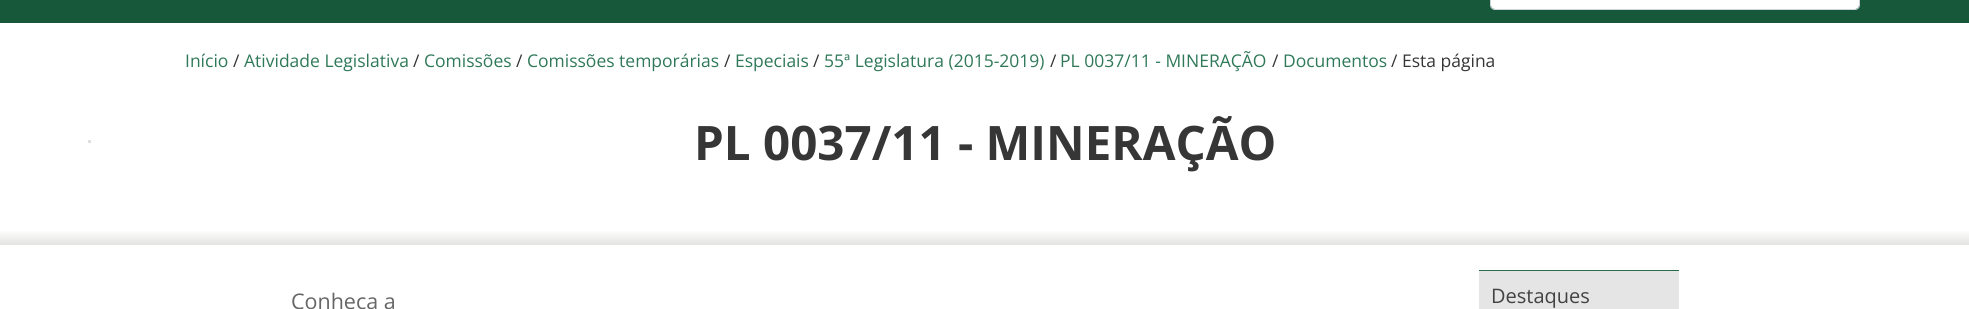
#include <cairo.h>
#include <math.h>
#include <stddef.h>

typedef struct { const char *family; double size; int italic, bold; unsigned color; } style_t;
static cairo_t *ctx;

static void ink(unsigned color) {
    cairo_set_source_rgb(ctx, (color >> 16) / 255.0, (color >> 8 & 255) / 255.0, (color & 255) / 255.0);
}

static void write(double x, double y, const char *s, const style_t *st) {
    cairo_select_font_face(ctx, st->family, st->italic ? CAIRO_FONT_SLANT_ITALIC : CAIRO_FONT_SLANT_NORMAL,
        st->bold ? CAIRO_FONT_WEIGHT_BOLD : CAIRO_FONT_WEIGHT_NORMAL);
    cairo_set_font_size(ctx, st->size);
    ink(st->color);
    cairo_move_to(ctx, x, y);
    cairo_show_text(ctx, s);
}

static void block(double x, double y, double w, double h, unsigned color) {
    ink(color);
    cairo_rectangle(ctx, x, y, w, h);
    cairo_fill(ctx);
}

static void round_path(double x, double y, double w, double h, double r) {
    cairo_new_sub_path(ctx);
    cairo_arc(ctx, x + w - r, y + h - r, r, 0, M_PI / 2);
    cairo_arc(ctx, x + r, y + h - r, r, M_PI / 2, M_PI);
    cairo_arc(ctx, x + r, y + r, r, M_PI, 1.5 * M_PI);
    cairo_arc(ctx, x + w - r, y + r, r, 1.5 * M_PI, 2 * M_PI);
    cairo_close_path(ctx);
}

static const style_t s1 = {"Open Sans", 17.5, 0, 0, 0x2f7958};
static const style_t s2 = {"Open Sans", 17.5, 0, 0, 0x363636};
static const style_t s3 = {"Open Sans", 47.5, 0, 1, 0x363636};
static const style_t s4 = {"Open Sans", 21.5, 0, 0, 0x666666};
static const style_t s5 = {"Open Sans", 20, 0, 0, 0x424242};

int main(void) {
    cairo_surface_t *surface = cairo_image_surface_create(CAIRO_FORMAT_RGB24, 1969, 309);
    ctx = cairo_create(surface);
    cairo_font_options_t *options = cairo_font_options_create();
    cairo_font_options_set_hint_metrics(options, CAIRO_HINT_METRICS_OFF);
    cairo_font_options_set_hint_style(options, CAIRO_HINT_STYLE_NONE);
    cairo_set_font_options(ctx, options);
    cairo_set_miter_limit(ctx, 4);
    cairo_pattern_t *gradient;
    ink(0xffffff);
    cairo_paint(ctx);
    block(0, 0, 1969, 23, 0x17583b);
    ink(0xffffff);
    round_path(1491, -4, 368, 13, 4);
    cairo_fill(ctx);
    round_path(1490.5, -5.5, 369, 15, 4.5);
    ink(0xced4da);
    cairo_set_line_width(ctx, 1);
    cairo_stroke(ctx);
    write(185, 67, "Início", &s1);
    write(233, 67, "/", &s2);
    write(244, 67, "Atividade Legislativa", &s1);
    write(413, 67, "/", &s2);
    write(424, 67, "Comissões", &s1);
    write(516, 67, "/", &s2);
    write(527, 67, "Comissões temporárias", &s1);
    write(724, 67, "/", &s2);
    write(735, 67, "Especiais", &s1);
    write(813, 67, "/", &s2);
    write(824, 67, "55ª Legislatura (2015-2019)", &s1);
    write(1050, 67, "/", &s2);
    write(1060, 67, "PL 0037/11 - MINERAÇÃO", &s1);
    write(1272, 67, "/", &s2);
    write(1283, 67, "Documentos", &s1);
    write(1391, 67, "/ Esta página", &s2);
    block(88, 140, 3, 3, 0xdfdfdf);
    write(694, 160, "PL 0037/11 - MINERAÇÃO", &s3);
    gradient = cairo_pattern_create_linear(985, 230, 985, 245);
    cairo_pattern_add_color_stop_rgba(gradient, 0, 1, 1, 1, 1);
    cairo_pattern_add_color_stop_rgba(gradient, 1, 0.894, 0.89, 0.886, 1);
    cairo_set_source(ctx, gradient);
    cairo_pattern_destroy(gradient);
    cairo_rectangle(ctx, 0, 231, 1969, 14);
    cairo_fill(ctx);
    write(291, 309, "Conheça a", &s4);
    block(1479, 271, 200, 38, 0xe5e5e5);
    block(1479, 270, 200, 1, 0x276d4d);
    write(1491, 303, "Destaques", &s5);
    cairo_surface_write_to_png(surface, "screenshot.png");
    cairo_font_options_destroy(options);
    cairo_destroy(ctx);
    cairo_surface_destroy(surface);
    return 0;
}
